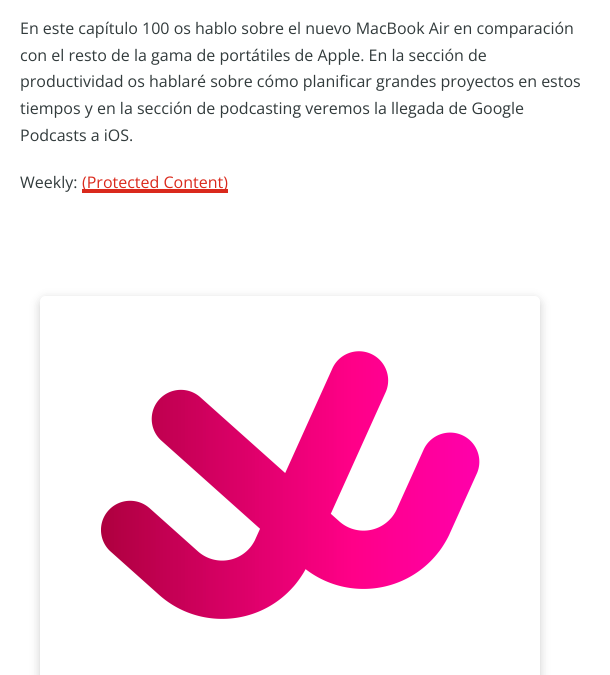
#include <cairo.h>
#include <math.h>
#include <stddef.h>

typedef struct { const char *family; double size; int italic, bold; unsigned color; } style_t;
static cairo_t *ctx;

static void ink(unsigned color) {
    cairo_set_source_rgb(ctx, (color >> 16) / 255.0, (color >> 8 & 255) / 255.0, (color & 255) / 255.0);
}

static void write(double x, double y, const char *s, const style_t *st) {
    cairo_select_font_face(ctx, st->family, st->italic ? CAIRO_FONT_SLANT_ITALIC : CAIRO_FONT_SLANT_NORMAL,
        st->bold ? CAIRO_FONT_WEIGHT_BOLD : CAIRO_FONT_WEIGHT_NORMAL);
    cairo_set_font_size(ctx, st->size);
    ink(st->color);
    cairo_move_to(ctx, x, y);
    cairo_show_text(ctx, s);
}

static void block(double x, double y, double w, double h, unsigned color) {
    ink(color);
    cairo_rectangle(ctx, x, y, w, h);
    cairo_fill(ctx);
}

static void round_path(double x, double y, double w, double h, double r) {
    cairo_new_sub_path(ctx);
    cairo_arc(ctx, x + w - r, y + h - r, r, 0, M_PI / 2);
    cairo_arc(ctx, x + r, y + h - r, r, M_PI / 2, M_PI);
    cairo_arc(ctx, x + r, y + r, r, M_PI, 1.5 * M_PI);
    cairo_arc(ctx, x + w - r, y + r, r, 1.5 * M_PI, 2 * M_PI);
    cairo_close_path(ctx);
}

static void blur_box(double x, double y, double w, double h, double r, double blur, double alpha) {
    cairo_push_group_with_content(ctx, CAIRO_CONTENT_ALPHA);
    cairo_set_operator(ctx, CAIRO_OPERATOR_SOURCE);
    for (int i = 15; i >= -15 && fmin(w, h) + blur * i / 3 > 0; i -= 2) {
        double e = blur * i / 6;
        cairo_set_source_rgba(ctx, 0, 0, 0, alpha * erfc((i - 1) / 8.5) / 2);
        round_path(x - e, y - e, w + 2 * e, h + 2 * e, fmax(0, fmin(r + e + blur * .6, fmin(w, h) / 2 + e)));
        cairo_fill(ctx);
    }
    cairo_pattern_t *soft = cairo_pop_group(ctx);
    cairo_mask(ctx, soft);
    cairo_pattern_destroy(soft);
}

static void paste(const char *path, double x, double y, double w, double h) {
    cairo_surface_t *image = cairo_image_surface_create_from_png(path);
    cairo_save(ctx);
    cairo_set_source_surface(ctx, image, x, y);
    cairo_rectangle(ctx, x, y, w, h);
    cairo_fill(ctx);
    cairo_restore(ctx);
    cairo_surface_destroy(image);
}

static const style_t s1 = {"Open Sans", 16, 0, 0, 0x323b3c};
static const style_t s2 = {"Open Sans", 16, 0, 0, 0xda291c};

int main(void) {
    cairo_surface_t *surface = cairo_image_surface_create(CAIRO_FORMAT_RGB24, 610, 675);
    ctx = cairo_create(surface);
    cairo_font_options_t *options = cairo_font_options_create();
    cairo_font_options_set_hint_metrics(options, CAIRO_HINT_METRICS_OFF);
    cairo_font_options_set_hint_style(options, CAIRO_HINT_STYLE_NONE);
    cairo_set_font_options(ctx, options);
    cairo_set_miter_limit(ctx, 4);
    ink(0xffffff);
    cairo_paint(ctx);
    write(20, 34, "En este capítulo 100 os hablo sobre el nuevo MacBook Air en comparación", &s1);
    write(20, 61, "con el resto de la gama de portátiles de Apple. En la sección de", &s1);
    write(20, 87, "productividad os hablaré sobre cómo planificar grandes proyectos en estos", &s1);
    write(20, 114, "tiempos y en la sección de podcasting veremos la llegada de Google", &s1);
    write(20, 141, "Podcasts a iOS.", &s1);
    write(20, 188, "Weekly:", &s1);
    block(82, 189, 146, 4, 0xda291c);
    write(82, 188, "(Protected Content)", &s2);
    cairo_save(ctx);
    cairo_set_fill_rule(ctx, CAIRO_FILL_RULE_EVEN_ODD);
    cairo_new_path(ctx);
    cairo_move_to(ctx, 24, 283);
    cairo_line_to(ctx, 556, 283);
    cairo_line_to(ctx, 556, 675);
    cairo_line_to(ctx, 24, 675);
    cairo_close_path(ctx);
    cairo_move_to(ctx, 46, 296);
    cairo_line_to(ctx, 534, 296);
    cairo_curve_to(ctx, 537.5, 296, 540, 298.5, 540, 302);
    cairo_line_to(ctx, 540, 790);
    cairo_curve_to(ctx, 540, 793.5, 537.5, 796, 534, 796);
    cairo_line_to(ctx, 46, 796);
    cairo_curve_to(ctx, 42.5, 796, 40, 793.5, 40, 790);
    cairo_line_to(ctx, 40, 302);
    cairo_curve_to(ctx, 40, 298.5, 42.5, 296, 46, 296);
    cairo_close_path(ctx);
    cairo_clip(ctx);
    ink(0x000000);
    blur_box(40, 299, 500, 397, 6, 5, 0.2);
    cairo_restore(ctx);
    paste("pic1.png", 101, 351, 379, 268);
    cairo_surface_write_to_png(surface, "screenshot.png");
    cairo_font_options_destroy(options);
    cairo_destroy(ctx);
    cairo_surface_destroy(surface);
    return 0;
}
